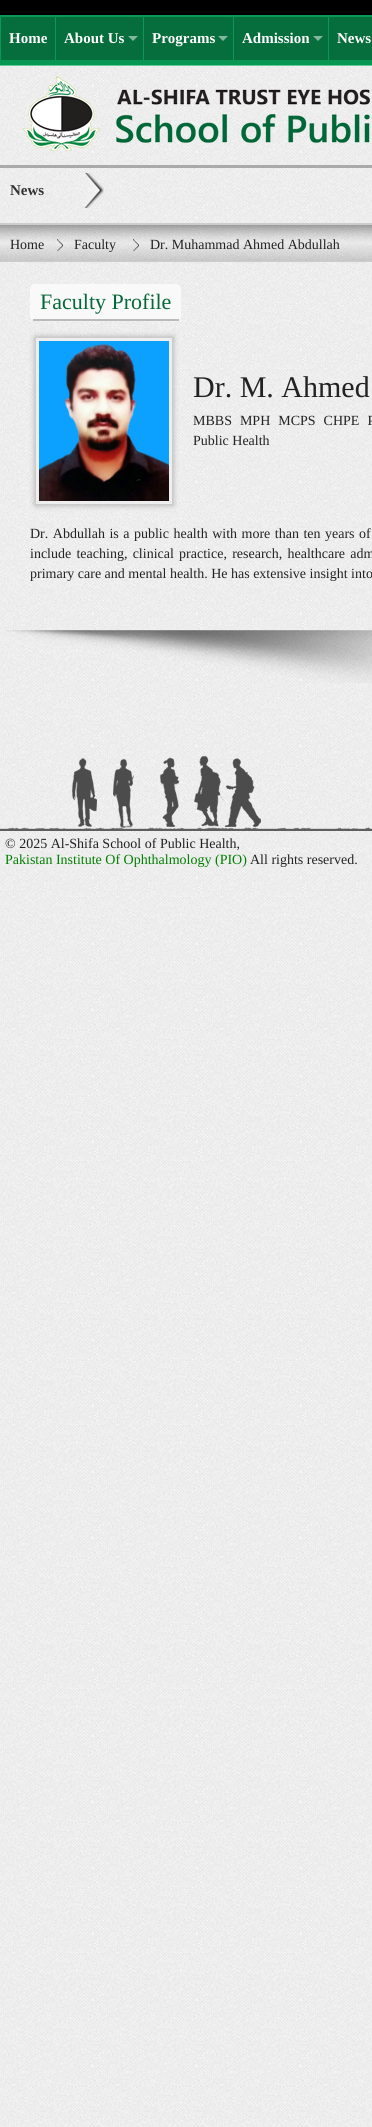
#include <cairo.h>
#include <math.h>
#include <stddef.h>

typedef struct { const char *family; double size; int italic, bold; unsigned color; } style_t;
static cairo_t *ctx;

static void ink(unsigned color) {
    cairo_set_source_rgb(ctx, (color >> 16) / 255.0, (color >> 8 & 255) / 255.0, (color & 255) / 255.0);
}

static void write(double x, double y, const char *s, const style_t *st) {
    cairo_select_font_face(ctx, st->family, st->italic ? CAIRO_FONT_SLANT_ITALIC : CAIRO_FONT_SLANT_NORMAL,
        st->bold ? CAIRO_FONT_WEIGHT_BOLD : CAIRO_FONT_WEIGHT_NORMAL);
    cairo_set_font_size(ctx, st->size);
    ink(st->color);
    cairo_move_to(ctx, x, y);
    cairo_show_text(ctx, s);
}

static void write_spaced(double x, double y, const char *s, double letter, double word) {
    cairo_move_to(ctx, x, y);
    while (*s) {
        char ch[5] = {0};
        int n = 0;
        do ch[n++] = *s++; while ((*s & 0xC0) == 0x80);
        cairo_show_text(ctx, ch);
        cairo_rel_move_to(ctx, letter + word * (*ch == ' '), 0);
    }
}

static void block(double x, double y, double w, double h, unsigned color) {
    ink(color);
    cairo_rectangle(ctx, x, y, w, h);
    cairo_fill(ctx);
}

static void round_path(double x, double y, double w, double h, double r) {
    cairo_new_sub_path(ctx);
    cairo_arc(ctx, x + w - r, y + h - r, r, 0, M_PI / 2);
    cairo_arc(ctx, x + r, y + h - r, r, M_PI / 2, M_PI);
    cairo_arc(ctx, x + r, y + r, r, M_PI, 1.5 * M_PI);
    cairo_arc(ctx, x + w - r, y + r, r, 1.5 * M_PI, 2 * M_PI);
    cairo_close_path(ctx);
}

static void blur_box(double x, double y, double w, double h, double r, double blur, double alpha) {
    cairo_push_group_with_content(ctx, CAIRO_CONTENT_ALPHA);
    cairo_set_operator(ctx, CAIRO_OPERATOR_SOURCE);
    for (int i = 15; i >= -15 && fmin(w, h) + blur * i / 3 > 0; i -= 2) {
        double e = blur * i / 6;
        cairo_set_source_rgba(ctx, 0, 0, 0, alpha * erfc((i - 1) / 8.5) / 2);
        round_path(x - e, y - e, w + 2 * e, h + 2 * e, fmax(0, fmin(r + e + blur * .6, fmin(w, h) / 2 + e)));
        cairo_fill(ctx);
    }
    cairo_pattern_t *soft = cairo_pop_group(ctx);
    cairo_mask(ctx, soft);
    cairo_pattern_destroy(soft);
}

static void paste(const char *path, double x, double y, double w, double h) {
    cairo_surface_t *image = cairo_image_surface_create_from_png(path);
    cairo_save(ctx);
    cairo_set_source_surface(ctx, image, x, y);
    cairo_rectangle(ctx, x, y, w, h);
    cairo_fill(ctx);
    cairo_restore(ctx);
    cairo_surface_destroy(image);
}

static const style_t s1 = {"Liberation Serif", 15, 0, 1, 0xffffff};
static const style_t s2 = {"Liberation Serif", 15, 0, 1, 0x333333};
static const style_t s3 = {"Liberation Serif", 14, 0, 0, 0x222222};
static const style_t s4 = {"Liberation Serif", 22, 0, 0, 0x056839};
static const style_t s5 = {"Liberation Serif", 30, 0, 0, 0x222222};
static const style_t s6 = {"Liberation Serif", 14, 0, 0, 0x008000};

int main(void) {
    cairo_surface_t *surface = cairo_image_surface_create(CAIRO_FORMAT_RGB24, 372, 2127);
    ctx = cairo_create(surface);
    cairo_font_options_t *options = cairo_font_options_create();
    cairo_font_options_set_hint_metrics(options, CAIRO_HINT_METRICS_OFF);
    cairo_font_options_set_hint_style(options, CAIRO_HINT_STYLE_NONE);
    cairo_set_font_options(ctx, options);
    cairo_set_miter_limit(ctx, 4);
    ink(0xffffff);
    cairo_paint(ctx);
    paste("pic1.png", 0, 65, 372, 2062);
    block(0, 0, 372, 60, 0x000000);
    block(0, 60, 372, 5, 0x056839);
    cairo_set_source_rgba(ctx, 0.043, 0.714, 0.396, 0.6);
    cairo_rectangle(ctx, 0, 16, 372, 50);
    cairo_fill(ctx);
    block(0, 15, 372, 1, 0x099955);
    cairo_new_path(ctx);
    cairo_move_to(ctx, 0, 16);
    cairo_line_to(ctx, 55, 16);
    cairo_line_to(ctx, 55, 17);
    cairo_line_to(ctx, 1, 17);
    cairo_close_path(ctx);
    cairo_fill(ctx);
    cairo_set_source_rgba(ctx, 0.043, 0.714, 0.396, 0.6);
    cairo_new_path(ctx);
    cairo_move_to(ctx, 0, 60);
    cairo_line_to(ctx, 0, 16);
    cairo_line_to(ctx, 1, 17);
    cairo_line_to(ctx, 1, 60);
    cairo_close_path(ctx);
    cairo_fill(ctx);
    write(9, 43, "Home", &s1);
    ink(0x099955);
    cairo_new_path(ctx);
    cairo_move_to(ctx, 55, 16);
    cairo_line_to(ctx, 143, 16);
    cairo_line_to(ctx, 143, 17);
    cairo_line_to(ctx, 56, 17);
    cairo_close_path(ctx);
    cairo_fill(ctx);
    cairo_set_source_rgba(ctx, 0.043, 0.714, 0.396, 0.6);
    cairo_new_path(ctx);
    cairo_move_to(ctx, 55, 60);
    cairo_line_to(ctx, 55, 16);
    cairo_line_to(ctx, 56, 17);
    cairo_line_to(ctx, 56, 60);
    cairo_close_path(ctx);
    cairo_fill(ctx);
    write(64, 43, "About Us", &s1);
    ink(0x83b69e);
    cairo_new_path(ctx);
    cairo_move_to(ctx, 128, 36);
    cairo_line_to(ctx, 138, 36);
    cairo_line_to(ctx, 133, 41);
    cairo_close_path(ctx);
    cairo_fill(ctx);
    ink(0x099955);
    cairo_new_path(ctx);
    cairo_move_to(ctx, 143, 16);
    cairo_line_to(ctx, 233, 16);
    cairo_line_to(ctx, 233, 17);
    cairo_line_to(ctx, 144, 17);
    cairo_close_path(ctx);
    cairo_fill(ctx);
    cairo_set_source_rgba(ctx, 0.043, 0.714, 0.396, 0.6);
    cairo_new_path(ctx);
    cairo_move_to(ctx, 143, 60);
    cairo_line_to(ctx, 143, 16);
    cairo_line_to(ctx, 144, 17);
    cairo_line_to(ctx, 144, 60);
    cairo_close_path(ctx);
    cairo_fill(ctx);
    write(152, 43, "Programs", &s1);
    ink(0x83b69e);
    cairo_new_path(ctx);
    cairo_move_to(ctx, 218, 36);
    cairo_line_to(ctx, 228, 36);
    cairo_line_to(ctx, 223, 41);
    cairo_close_path(ctx);
    cairo_fill(ctx);
    ink(0x099955);
    cairo_new_path(ctx);
    cairo_move_to(ctx, 233, 16);
    cairo_line_to(ctx, 328, 16);
    cairo_line_to(ctx, 328, 17);
    cairo_line_to(ctx, 234, 17);
    cairo_close_path(ctx);
    cairo_fill(ctx);
    cairo_set_source_rgba(ctx, 0.043, 0.714, 0.396, 0.6);
    cairo_new_path(ctx);
    cairo_move_to(ctx, 233, 60);
    cairo_line_to(ctx, 233, 16);
    cairo_line_to(ctx, 234, 17);
    cairo_line_to(ctx, 234, 60);
    cairo_close_path(ctx);
    cairo_fill(ctx);
    write(242, 43, "Admission", &s1);
    ink(0x83b69e);
    cairo_new_path(ctx);
    cairo_move_to(ctx, 313, 36);
    cairo_line_to(ctx, 323, 36);
    cairo_line_to(ctx, 318, 41);
    cairo_close_path(ctx);
    cairo_fill(ctx);
    ink(0x099955);
    cairo_new_path(ctx);
    cairo_move_to(ctx, 328, 16);
    cairo_line_to(ctx, 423, 16);
    cairo_line_to(ctx, 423, 17);
    cairo_line_to(ctx, 329, 17);
    cairo_close_path(ctx);
    cairo_fill(ctx);
    cairo_set_source_rgba(ctx, 0.043, 0.714, 0.396, 0.6);
    cairo_new_path(ctx);
    cairo_move_to(ctx, 328, 60);
    cairo_line_to(ctx, 328, 16);
    cairo_line_to(ctx, 329, 17);
    cairo_line_to(ctx, 329, 60);
    cairo_close_path(ctx);
    cairo_fill(ctx);
    write(337, 43, "News", &s1);
    block(0, 165, 372, 3, 0xaaaaaa);
    paste("pic2.png", 23, 76, 347, 75);
    block(0, 223, 372, 2, 0xcccccc);
    paste("pic3.png", 84, 173, 20, 35);
    write(10, 195, "News", &s2);
    block(0, 261, 372, 1, 0xcccccc);
    write(10, 249, "Home", &s3);
    paste("pic4.png", 57, 239, 6, 12);
    write(74, 249, "Faculty", &s3);
    paste("pic5.png", 133, 239, 6, 12);
    write(150, 249, "Dr. Muhammad Ahmed Abdullah", &s3);
    ink(0xf9f9f9);
    round_path(30, 284, 151, 37, 5);
    cairo_fill(ctx);
    write(40, 309, "Faculty Profile", &s4);
    block(33, 319, 146, 2, 0xbbbbbb);
    ink(0xaaaaaa);
    blur_box(35, 337, 138, 168, 0, 3, 1);
    ink(0xeeeeee);
    cairo_rectangle(ctx, 35.5, 337.5, 137, 167);
    cairo_fill_preserve(ctx);
    ink(0xcccccc);
    cairo_set_line_width(ctx, 1);
    cairo_stroke(ctx);
    paste("pic6.png", 39, 341, 130, 160);
    write(193, 397, "Dr. M. Ahmed", &s5);
    cairo_set_font_size(ctx, 14);
    write_spaced(193, 425, "MBBS MPH MCPS CHPE P", 0, 4.5);
    write(193, 445, "Public Health", &s3);
    write_spaced(30, 538, "Dr. Abdullah is a public health with more than ten years of", 0, 1);
    write_spaced(30, 558, "include teaching, clinical practice, research, healthcare adm", 0, 1.75);
    write(30, 578, "primary care and mental health. He has extensive insight into", &s3);
    paste("pic7.png", 7, 630, 365, 53);
    paste("pic8.png", 0, 826, 372, 5);
    paste("pic9.png", 72, 756, 189, 72);
    write(5, 848, "© 2025 Al-Shifa School of Public Health,", &s3);
    write(5, 864, "Pakistan Institute Of Ophthalmology (PIO)", &s6);
    write(250, 864, "All rights reserved.", &s3);
    cairo_surface_write_to_png(surface, "screenshot.png");
    cairo_font_options_destroy(options);
    cairo_destroy(ctx);
    cairo_surface_destroy(surface);
    return 0;
}
